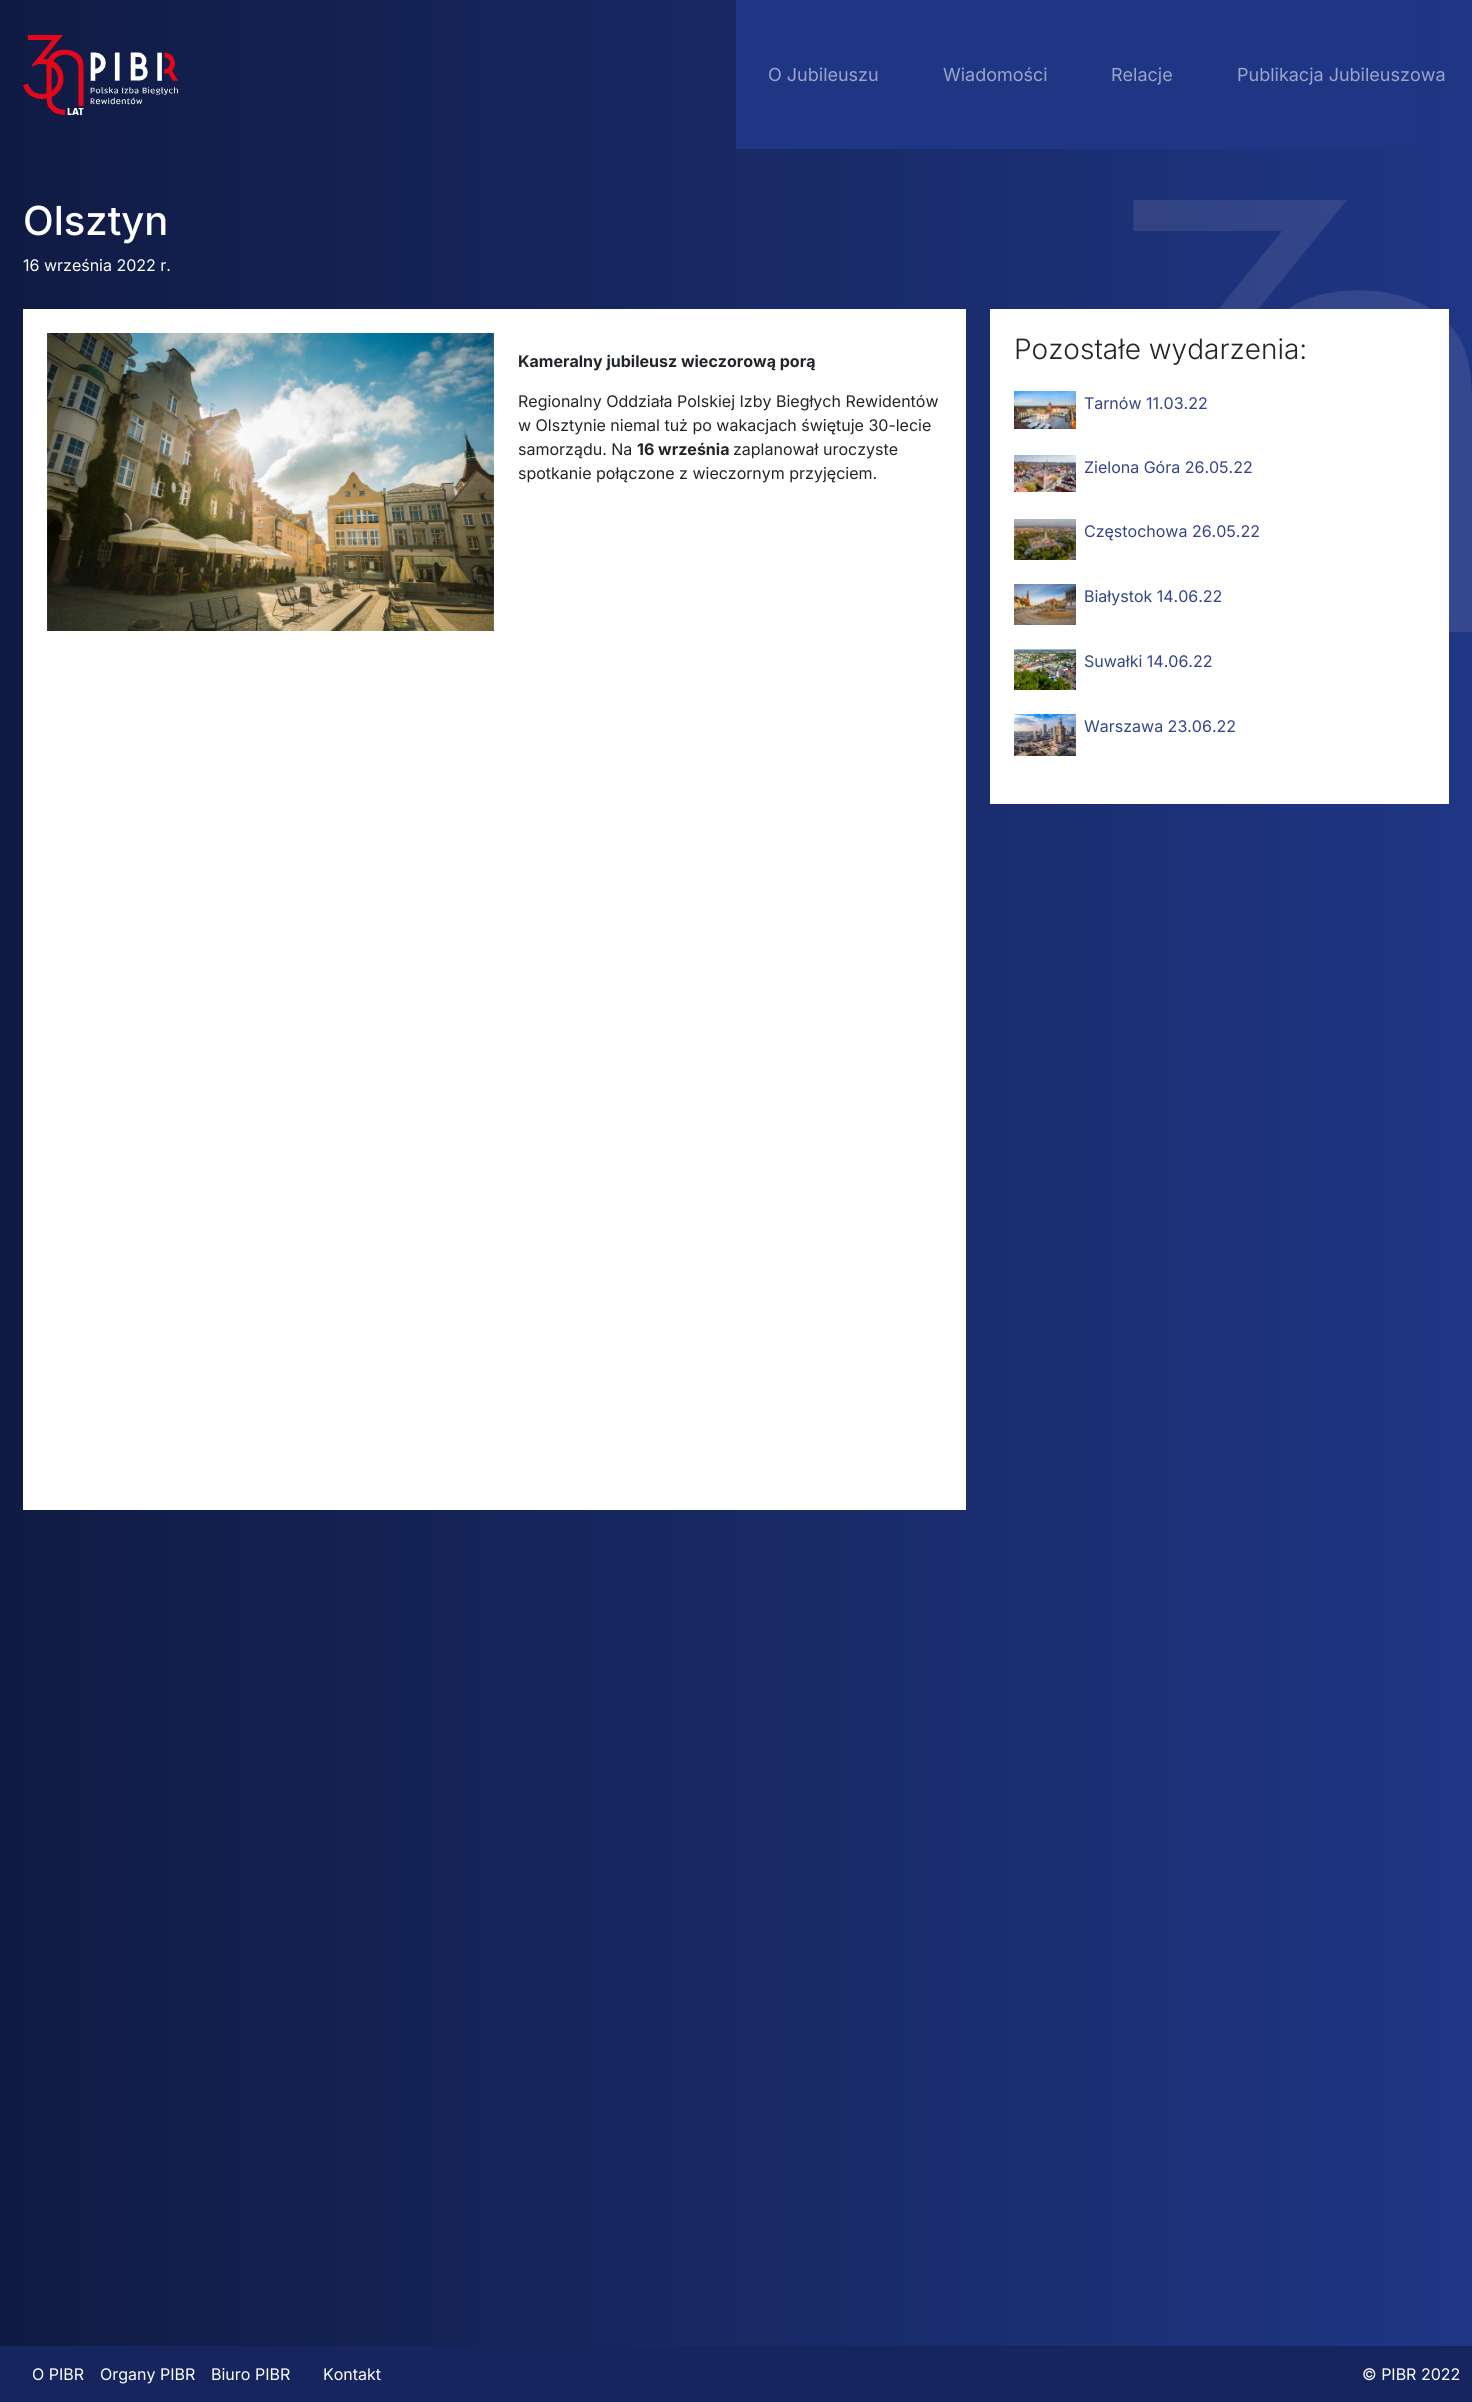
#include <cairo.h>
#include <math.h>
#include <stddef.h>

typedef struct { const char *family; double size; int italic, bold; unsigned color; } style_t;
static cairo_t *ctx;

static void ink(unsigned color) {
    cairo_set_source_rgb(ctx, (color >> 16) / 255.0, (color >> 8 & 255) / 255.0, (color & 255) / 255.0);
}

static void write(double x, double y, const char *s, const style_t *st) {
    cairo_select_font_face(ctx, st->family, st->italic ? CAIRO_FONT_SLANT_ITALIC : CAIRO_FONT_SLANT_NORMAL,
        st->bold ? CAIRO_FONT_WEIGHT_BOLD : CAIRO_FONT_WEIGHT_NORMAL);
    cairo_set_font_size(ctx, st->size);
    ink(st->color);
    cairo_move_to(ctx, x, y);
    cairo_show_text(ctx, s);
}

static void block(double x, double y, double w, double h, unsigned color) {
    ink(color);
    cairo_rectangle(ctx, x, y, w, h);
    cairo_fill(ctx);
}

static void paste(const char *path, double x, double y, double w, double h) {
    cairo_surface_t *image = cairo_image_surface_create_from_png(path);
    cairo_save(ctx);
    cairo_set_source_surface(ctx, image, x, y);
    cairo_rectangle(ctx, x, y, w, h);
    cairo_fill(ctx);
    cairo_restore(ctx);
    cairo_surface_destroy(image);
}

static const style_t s1 = {"Inter", 18, 0, 0, 0x9aa5c8};
static const style_t s2 = {"Inter Medium", 40, 0, 0, 0xffffff};
static const style_t s3 = {"Inter", 16, 0, 0, 0xffffff};
static const style_t s4 = {"Inter", 16, 0, 1, 0x212529};
static const style_t s5 = {"Inter", 16, 0, 0, 0x212529};
static const style_t s6 = {"Inter Light", 28, 0, 0, 0x212529};
static const style_t s7 = {"Inter", 16, 0, 0, 0x344485};

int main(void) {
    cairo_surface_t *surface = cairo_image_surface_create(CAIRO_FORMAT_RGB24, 1472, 2402);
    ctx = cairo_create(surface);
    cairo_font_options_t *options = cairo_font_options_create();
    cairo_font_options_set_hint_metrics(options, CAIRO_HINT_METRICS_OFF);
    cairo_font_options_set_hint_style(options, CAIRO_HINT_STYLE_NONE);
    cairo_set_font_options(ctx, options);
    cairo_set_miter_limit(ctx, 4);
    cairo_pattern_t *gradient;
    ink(0xffffff);
    cairo_paint(ctx);
    gradient = cairo_pattern_create_linear(1472, 1201, 0, 1201);
    cairo_pattern_add_color_stop_rgba(gradient, 0, 0.122, 0.212, 0.522, 1);
    cairo_pattern_add_color_stop_rgba(gradient, 1, 0.063, 0.106, 0.263, 1);
    cairo_set_source(ctx, gradient);
    cairo_pattern_destroy(gradient);
    cairo_rectangle(ctx, 0, 0, 1472, 2346);
    cairo_fill(ctx);
    paste("pic1.png", 1133, 200, 339, 432);
    block(736, 0, 680, 149, 0x1f3685);
    paste("pic2.png", 23, 35, 155, 80);
    write(768, 81, "O Jubileuszu", &s1);
    write(943, 81, "Wiadomości", &s1);
    write(1111, 81, "Relacje", &s1);
    write(1237, 81, "Publikacja Jubileuszowa", &s1);
    write(23, 235, "Olsztyn", &s2);
    write(23, 271, "16 września 2022 r.", &s3);
    block(23, 309, 943, 1201, 0xffffff);
    paste("pic3.png", 47, 333, 447, 298);
    write(518, 367, "Kameralny jubileusz wieczorową porą", &s4);
    write(518, 407, "Regionalny Oddziała Polskiej Izby Biegłych Rewidentów", &s5);
    write(518, 431, "w Olsztynie niemal tuż po wakacjach świętuje 30-lecie", &s5);
    write(518, 455, "samorządu. Na", &s5);
    write(637, 455, "16 września", &s4);
    write(733, 455, "zaplanował uroczyste", &s5);
    write(518, 479, "spotkanie połączone z wieczornym przyjęciem.", &s5);
    block(990, 309, 459, 495, 0xffffff);
    write(1014, 359, "Pozostałe wydarzenia:", &s6);
    paste("pic4.png", 1014, 391, 62, 38);
    write(1084, 409, "Tarnów 11.03.22", &s7);
    paste("pic5.png", 1014, 455, 62, 37);
    write(1084, 473, "Zielona Góra 26.05.22", &s7);
    paste("pic6.png", 1014, 519, 62, 41);
    write(1084, 537, "Częstochowa 26.05.22", &s7);
    paste("pic7.png", 1014, 584, 62, 41);
    write(1084, 602, "Białystok 14.06.22", &s7);
    paste("pic8.png", 1014, 649, 62, 41);
    write(1084, 667, "Suwałki 14.06.22", &s7);
    paste("pic9.png", 1014, 714, 62, 42);
    write(1084, 732, "Warszawa 23.06.22", &s7);
    block(0, 2346, 1472, 56, 0x16255d);
    write(32, 2380, "O PIBR", &s3);
    write(100, 2380, "Organy PIBR", &s3);
    write(211, 2380, "Biuro PIBR", &s3);
    write(323, 2380, "Kontakt", &s3);
    write(1362, 2380, "© PIBR 2022", &s3);
    cairo_surface_write_to_png(surface, "screenshot.png");
    cairo_font_options_destroy(options);
    cairo_destroy(ctx);
    cairo_surface_destroy(surface);
    return 0;
}
